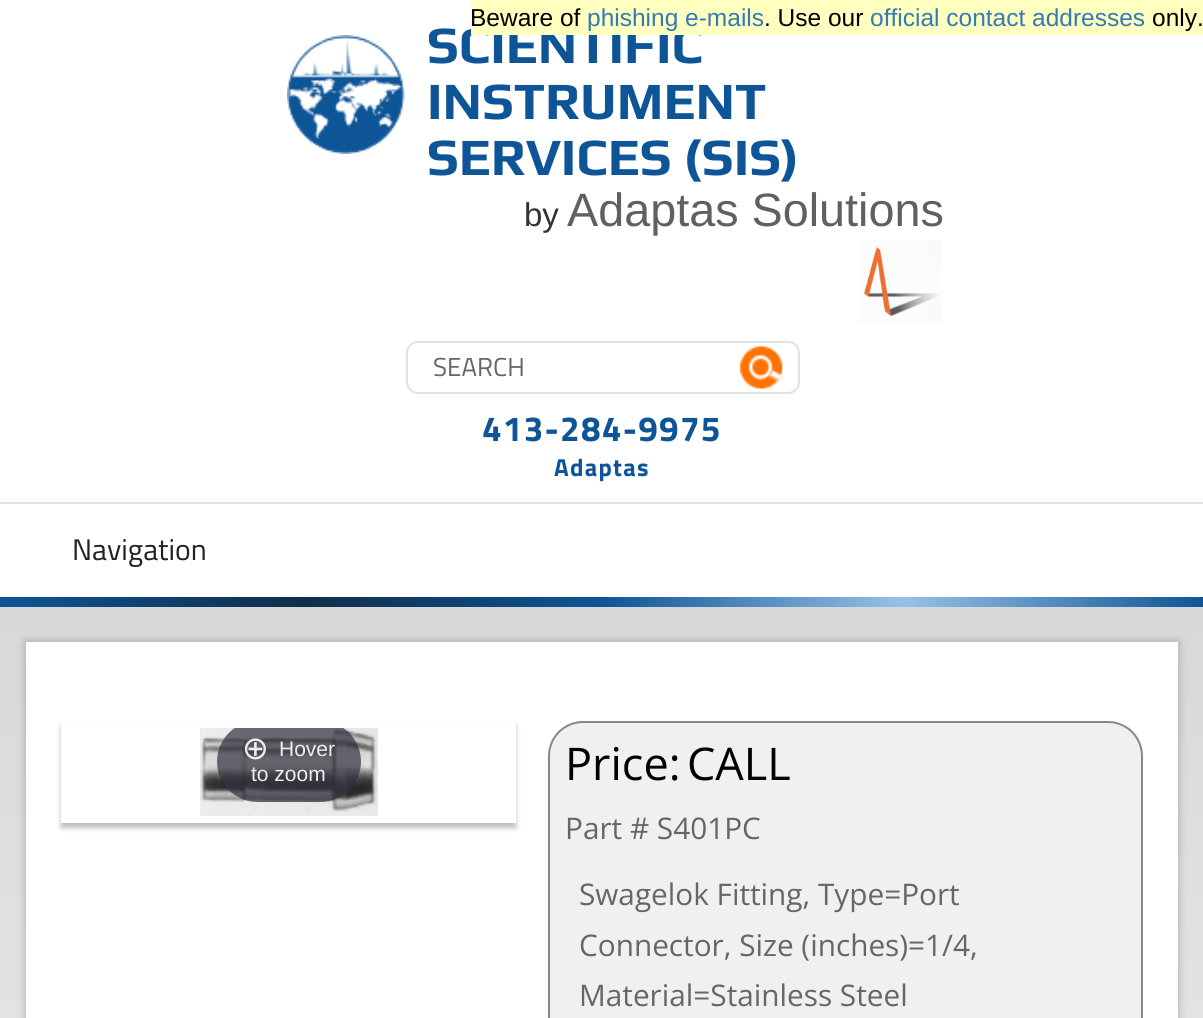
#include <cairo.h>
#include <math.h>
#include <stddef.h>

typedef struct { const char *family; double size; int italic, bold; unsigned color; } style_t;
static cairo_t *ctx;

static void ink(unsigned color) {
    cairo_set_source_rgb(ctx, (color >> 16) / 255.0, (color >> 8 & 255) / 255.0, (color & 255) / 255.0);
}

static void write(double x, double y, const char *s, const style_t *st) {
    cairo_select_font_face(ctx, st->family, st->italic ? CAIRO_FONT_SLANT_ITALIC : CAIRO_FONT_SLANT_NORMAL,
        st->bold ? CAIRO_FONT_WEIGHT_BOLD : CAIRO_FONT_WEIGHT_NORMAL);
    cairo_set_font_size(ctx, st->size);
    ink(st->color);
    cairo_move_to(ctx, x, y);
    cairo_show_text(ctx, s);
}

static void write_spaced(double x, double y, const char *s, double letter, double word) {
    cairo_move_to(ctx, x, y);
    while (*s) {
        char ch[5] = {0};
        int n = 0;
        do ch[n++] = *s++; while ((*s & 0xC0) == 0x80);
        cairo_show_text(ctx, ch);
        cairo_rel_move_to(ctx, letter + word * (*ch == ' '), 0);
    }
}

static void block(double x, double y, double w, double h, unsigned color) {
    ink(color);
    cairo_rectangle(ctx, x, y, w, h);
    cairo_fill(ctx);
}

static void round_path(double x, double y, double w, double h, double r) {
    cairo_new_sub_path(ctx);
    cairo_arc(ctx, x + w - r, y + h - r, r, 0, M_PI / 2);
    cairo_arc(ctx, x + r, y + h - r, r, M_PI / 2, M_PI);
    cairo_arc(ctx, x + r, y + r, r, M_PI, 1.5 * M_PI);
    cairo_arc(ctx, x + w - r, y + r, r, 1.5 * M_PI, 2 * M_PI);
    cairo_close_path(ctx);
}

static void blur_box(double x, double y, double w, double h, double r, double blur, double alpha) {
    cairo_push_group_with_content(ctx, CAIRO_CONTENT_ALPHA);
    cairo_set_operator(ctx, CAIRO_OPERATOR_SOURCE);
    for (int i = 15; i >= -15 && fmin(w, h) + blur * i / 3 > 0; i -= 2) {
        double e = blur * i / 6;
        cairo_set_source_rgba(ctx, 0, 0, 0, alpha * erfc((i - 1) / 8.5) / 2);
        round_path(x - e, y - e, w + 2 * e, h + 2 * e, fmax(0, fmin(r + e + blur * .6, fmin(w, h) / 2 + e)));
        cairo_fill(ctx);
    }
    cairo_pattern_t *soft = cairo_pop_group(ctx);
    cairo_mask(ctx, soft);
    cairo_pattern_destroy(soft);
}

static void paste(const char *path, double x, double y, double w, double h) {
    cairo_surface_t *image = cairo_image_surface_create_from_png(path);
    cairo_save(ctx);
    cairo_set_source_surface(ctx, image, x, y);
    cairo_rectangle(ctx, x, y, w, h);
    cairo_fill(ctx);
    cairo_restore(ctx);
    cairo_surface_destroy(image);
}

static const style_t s1 = {"Play", 52.5, 0, 1, 0x0e5597};
static const style_t s2 = {"Liberation Sans", 24.5, 0, 0, 0x000000};
static const style_t s3 = {"Liberation Sans", 24.5, 0, 0, 0x337ab7};
static const style_t s4 = {"Liberation Sans", 33, 0, 0, 0x333333};
static const style_t s5 = {"Liberation Sans", 46.75, 0, 0, 0x606060};
static const style_t s6 = {"Titillium Web", 26, 0, 0, 0x666666};
static const style_t s7 = {"Titillium Web", 29.75, 0, 0, 0x222222};
static const style_t s8 = {"DejaVu Sans", 32, 0, 0, 0xeeeeee};
static const style_t s9 = {"Liberation Sans", 21, 0, 0, 0xeeeeee};
static const style_t s10 = {"Open Sans", 45, 0, 0, 0x000000};
static const style_t s11 = {"Open Sans", 29.75, 0, 0, 0x666666};

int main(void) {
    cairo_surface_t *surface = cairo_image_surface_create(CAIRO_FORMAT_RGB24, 1203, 1018);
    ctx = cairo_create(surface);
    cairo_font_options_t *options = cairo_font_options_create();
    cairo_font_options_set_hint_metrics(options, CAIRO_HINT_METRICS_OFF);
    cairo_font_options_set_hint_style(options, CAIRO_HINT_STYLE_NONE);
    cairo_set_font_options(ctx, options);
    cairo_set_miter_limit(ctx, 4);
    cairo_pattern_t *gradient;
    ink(0xffffff);
    cairo_paint(ctx);
    write(427, 63, "SCIENTIFIC", &s1);
    block(471, 0, 732, 35, 0xffffc0);
    write(470, 26, "Beware of", &s2);
    write(587, 26, "phishing e-mails", &s3);
    write(764, 26, ". Use our", &s2);
    write(870, 26, "official contact addresses", &s3);
    write(1152, 26, "only.", &s2);
    paste("pic1.png", 287, 35, 118, 119);
    write(427, 119, "INSTRUMENT", &s1);
    write(427, 175, "SERVICES (SIS)", &s1);
    write(524, 226, "by", &s4);
    write(567, 226, "Adaptas Solutions", &s5);
    paste("pic2.png", 860, 240, 82, 84);
    round_path(407, 342, 392, 51, 11);
    ink(0xe2e2e2);
    cairo_stroke(ctx);
    write(433, 376, "SEARCH", &s6);
    paste("pic3.png", 740, 346, 43, 43);
    cairo_select_font_face(ctx, "Titillium Web", CAIRO_FONT_SLANT_NORMAL, CAIRO_FONT_WEIGHT_BOLD);
    cairo_set_font_size(ctx, 35);
    ink(0x0e5597);
    write_spaced(482, 441, "413-284-9975", 1.25, 0);
    cairo_set_font_size(ctx, 24.5);
    write_spaced(554, 476, "Adaptas", 1.25, 0);
    write(72, 560, "Navigation", &s7);
    block(0, 502, 1203, 2, 0xe2e2e2);
    gradient = cairo_pattern_create_linear(0, 602, 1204, 602);
    cairo_pattern_add_color_stop_rgba(gradient, 0, 0.055, 0.333, 0.592, 1);
    cairo_pattern_add_color_stop_rgba(gradient, 0.25, 0.063, 0.18, 0.294, 1);
    cairo_pattern_add_color_stop_rgba(gradient, 0.5, 0.055, 0.333, 0.592, 1);
    cairo_pattern_add_color_stop_rgba(gradient, 0.75, 0.592, 0.757, 0.906, 1);
    cairo_pattern_add_color_stop_rgba(gradient, 1, 0.055, 0.333, 0.592, 1);
    cairo_set_source(ctx, gradient);
    cairo_pattern_destroy(gradient);
    cairo_rectangle(ctx, 0, 597, 1203, 10);
    cairo_fill(ctx);
    gradient = cairo_pattern_create_linear(602, 607, 602, 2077);
    cairo_pattern_add_color_stop_rgba(gradient, 0, 0.847, 0.847, 0.847, 1);
    cairo_pattern_add_color_stop_rgba(gradient, 1, 1, 1, 1, 1);
    cairo_set_source(ctx, gradient);
    cairo_pattern_destroy(gradient);
    cairo_rectangle(ctx, 0, 607, 1203, 411);
    cairo_fill(ctx);
    ink(0x000000);
    blur_box(26, 642, 1152, 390, 0, 4.5, 0.25);
    block(26, 642, 1152, 376, 0xffffff);
    ink(0x000000);
    blur_box(61, 726, 455, 102, 0, 2.5, 0.25);
    block(61, 722, 455, 101, 0xffffff);
    paste("pic4.png", 200, 728, 178, 88);
    cairo_save(ctx);
    cairo_rectangle(ctx, 200, 728, 178, 88);
    cairo_clip(ctx);
    cairo_set_source_rgba(ctx, 0.192, 0.2, 0.239, 0.7);
    round_path(217, 721, 144, 81, 40.5);
    cairo_fill(ctx);
    cairo_restore(ctx);
    write(242, 759, "⊕", &s8);
    write(279, 756, "Hover", &s9);
    write(251, 781, "to zoom", &s9);
    ink(0xf0f0f0);
    round_path(549, 722, 593, 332, 34);
    cairo_fill_preserve(ctx);
    ink(0x888888);
    cairo_stroke(ctx);
    write(565, 780, "Price:", &s10);
    write(687, 780, "CALL", &s10);
    write(565, 839, "Part # S401PC", &s11);
    write(579, 905, "Swagelok Fitting, Type=Port", &s11);
    write(579, 956, "Connector, Size (inches)=1/4,", &s11);
    write(579, 1006, "Material=Stainless Steel", &s11);
    cairo_surface_write_to_png(surface, "screenshot.png");
    cairo_font_options_destroy(options);
    cairo_destroy(ctx);
    cairo_surface_destroy(surface);
    return 0;
}
